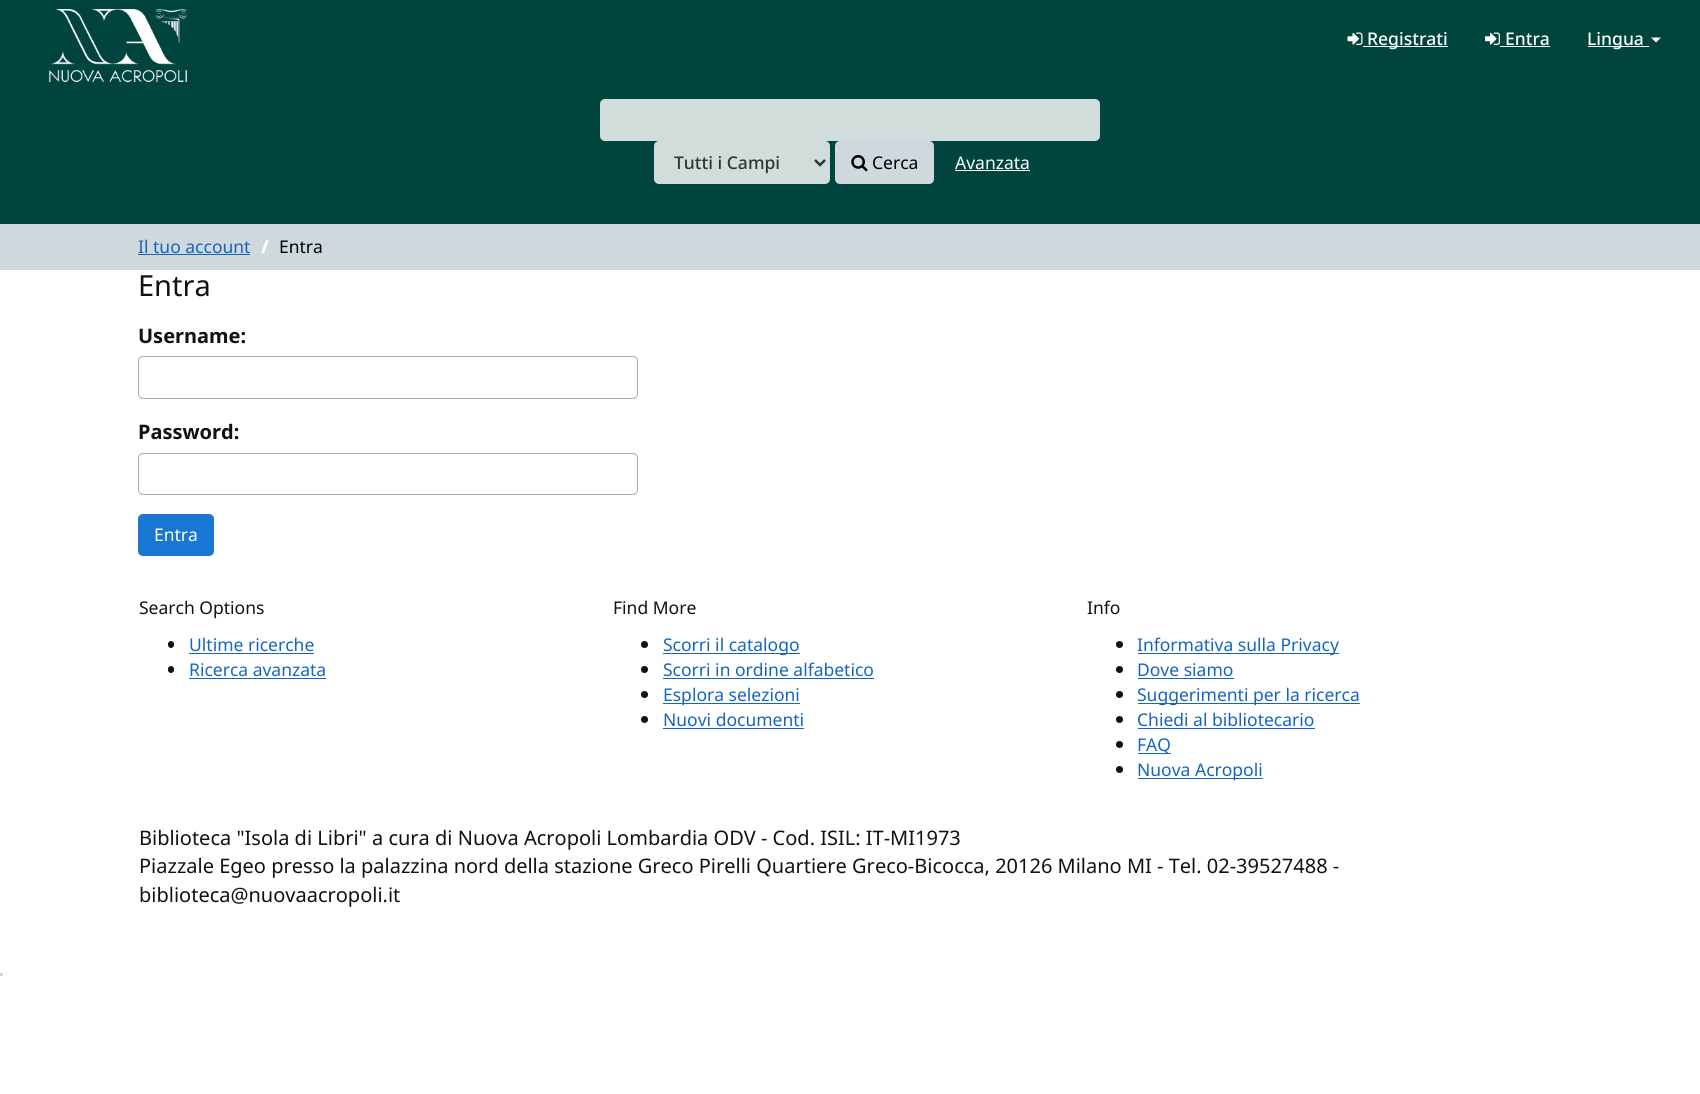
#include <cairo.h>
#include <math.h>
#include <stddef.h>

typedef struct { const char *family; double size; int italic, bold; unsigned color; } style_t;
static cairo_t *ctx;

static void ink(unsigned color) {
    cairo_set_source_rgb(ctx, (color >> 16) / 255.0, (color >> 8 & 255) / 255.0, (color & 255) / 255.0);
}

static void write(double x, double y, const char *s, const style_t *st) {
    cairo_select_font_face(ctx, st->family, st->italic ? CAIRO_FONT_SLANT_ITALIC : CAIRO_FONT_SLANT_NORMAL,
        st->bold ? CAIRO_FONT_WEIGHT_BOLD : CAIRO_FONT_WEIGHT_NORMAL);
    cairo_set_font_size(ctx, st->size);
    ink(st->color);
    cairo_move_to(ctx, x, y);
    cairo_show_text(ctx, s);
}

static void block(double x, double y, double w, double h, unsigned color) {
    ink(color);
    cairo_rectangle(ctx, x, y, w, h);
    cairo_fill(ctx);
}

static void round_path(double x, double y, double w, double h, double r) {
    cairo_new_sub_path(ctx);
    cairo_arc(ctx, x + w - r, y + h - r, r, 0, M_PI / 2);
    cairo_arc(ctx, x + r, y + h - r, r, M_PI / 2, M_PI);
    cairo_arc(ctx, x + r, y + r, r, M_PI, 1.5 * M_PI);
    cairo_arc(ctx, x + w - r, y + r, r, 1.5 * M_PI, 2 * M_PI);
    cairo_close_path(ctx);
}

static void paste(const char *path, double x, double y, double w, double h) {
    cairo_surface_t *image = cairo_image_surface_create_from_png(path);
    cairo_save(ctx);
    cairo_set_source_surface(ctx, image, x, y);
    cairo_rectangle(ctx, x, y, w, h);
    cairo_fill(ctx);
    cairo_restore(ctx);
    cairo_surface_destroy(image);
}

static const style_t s1 = {"Noto Sans Medium", 17.5, 0, 0, 0xffffff};
static const style_t s2 = {"Noto Sans Medium", 17.5, 0, 0, 0x333333};
static const style_t s3 = {"Noto Sans", 17.5, 0, 0, 0x000000};
static const style_t s4 = {"Noto Sans", 17.5, 0, 0, 0xffffff};
static const style_t s5 = {"Noto Sans", 17.5, 0, 0, 0x1565c0};
static const style_t s6 = {"Noto Sans Black", 17.5, 0, 0, 0xffffff};
static const style_t s7 = {"Noto Sans", 29, 0, 0, 0x111111};
static const style_t s8 = {"Noto Sans", 20, 0, 1, 0x111111};
static const style_t s9 = {"Noto Sans", 17.5, 0, 0, 0x111111};
static const style_t s10 = {"Noto Sans", 20, 0, 0, 0x111111};

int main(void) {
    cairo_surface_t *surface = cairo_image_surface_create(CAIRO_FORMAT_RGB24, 1700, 1094);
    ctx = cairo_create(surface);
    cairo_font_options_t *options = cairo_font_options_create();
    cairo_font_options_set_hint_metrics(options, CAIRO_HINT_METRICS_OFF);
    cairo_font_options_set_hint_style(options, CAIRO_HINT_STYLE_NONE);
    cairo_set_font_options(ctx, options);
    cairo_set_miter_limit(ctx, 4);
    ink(0xffffff);
    cairo_paint(ctx);
    block(0, 0, 1700, 224, 0x00443e);
    paste("pic1.png", 48, 9, 140, 74);
    paste("pic2.png", 1347, 32, 16, 13);
    block(1363, 46, 85, 1, 0xffffff);
    write(1367, 45, "Registrati", &s1);
    paste("pic3.png", 1485, 32, 15, 13);
    write(1505, 45, "Entra", &s1);
    block(1500, 46, 50, 1, 0xffffff);
    block(1588, 46, 61, 1, 0xffffff);
    write(1587, 45, "Lingua", &s1);
    cairo_new_path(ctx);
    cairo_move_to(ctx, 1651, 37.5);
    cairo_line_to(ctx, 1661, 37.5);
    cairo_line_to(ctx, 1656, 42.5);
    cairo_close_path(ctx);
    cairo_fill(ctx);
    ink(0xd0dddb);
    round_path(600, 99, 500, 42, 5);
    cairo_fill(ctx);
    round_path(654, 141, 176, 43, 5);
    cairo_fill(ctx);
    cairo_new_path(ctx);
    cairo_move_to(ctx, 815, 160);
    cairo_line_to(ctx, 820, 165);
    cairo_line_to(ctx, 825, 160);
    ink(0x333333);
    cairo_set_line_width(ctx, 2.5);
    cairo_stroke(ctx);
    write(674, 169, "Tutti i Campi", &s2);
    ink(0xcfd8dc);
    round_path(835, 141, 99, 43, 5);
    cairo_fill(ctx);
    paste("pic4.png", 851, 155, 17, 17);
    write(872, 169, "Cerca", &s3);
    write(955, 169, "Avanzata", &s4);
    block(955, 170, 75, 1, 0xffffff);
    block(0, 224, 1700, 46, 0xcfd8dc);
    write(138, 253, "Il tuo account", &s5);
    block(138, 254, 112, 1, 0x1565c0);
    write(261, 253, "/", &s6);
    write(279, 253, "Entra", &s3);
    write(138, 296, "Entra", &s7);
    write(138, 343, "Username:", &s8);
    round_path(138.5, 356.5, 499, 42, 4.5);
    ink(0xaaaaaa);
    cairo_set_line_width(ctx, 1);
    cairo_stroke(ctx);
    write(138, 439, "Password:", &s8);
    round_path(138.5, 453.5, 499, 41, 4.5);
    ink(0xaaaaaa);
    cairo_stroke(ctx);
    ink(0x1976d2);
    round_path(138, 514, 76, 42, 5);
    cairo_fill(ctx);
    write(154, 541, "Entra", &s4);
    write(139, 614, "Search Options", &s9);
    round_path(168, 641, 6, 7, 3);
    cairo_fill(ctx);
    write(189, 651, "Ultime ricerche", &s5);
    block(189, 653, 125, 1, 0x1565c0);
    ink(0x111111);
    round_path(168, 666, 6, 7, 3);
    cairo_fill(ctx);
    write(189, 676, "Ricerca avanzata", &s5);
    block(189, 678, 137, 1, 0x1565c0);
    write(613, 614, "Find More", &s9);
    cairo_new_path(ctx);
    cairo_arc(ctx, 644.5, 644.5, 3.5, 0, 2 * M_PI);
    cairo_fill(ctx);
    block(663, 653, 137, 1, 0x1565c0);
    write(663, 651, "Scorri il catalogo", &s5);
    ink(0x111111);
    cairo_new_path(ctx);
    cairo_arc(ctx, 644.5, 669.5, 3.5, 0, 2 * M_PI);
    cairo_fill(ctx);
    write(663, 676, "Scorri in ordine alfabetico", &s5);
    block(663, 678, 211, 1, 0x1565c0);
    ink(0x111111);
    cairo_new_path(ctx);
    cairo_arc(ctx, 644.5, 694.5, 3.5, 0, 2 * M_PI);
    cairo_fill(ctx);
    block(663, 703, 137, 1, 0x1565c0);
    write(663, 701, "Esplora selezioni", &s5);
    ink(0x111111);
    cairo_new_path(ctx);
    cairo_arc(ctx, 644.5, 719.5, 3.5, 0, 2 * M_PI);
    cairo_fill(ctx);
    write(663, 726, "Nuovi documenti", &s5);
    block(663, 728, 141, 1, 0x1565c0);
    write(1087, 614, "Info", &s9);
    cairo_new_path(ctx);
    cairo_arc(ctx, 1119.5, 644.5, 3.5, 0, 2 * M_PI);
    cairo_fill(ctx);
    block(1138, 653, 201, 1, 0x1565c0);
    write(1137, 651, "Informativa sulla Privacy", &s5);
    ink(0x111111);
    cairo_new_path(ctx);
    cairo_arc(ctx, 1119.5, 669.5, 3.5, 0, 2 * M_PI);
    cairo_fill(ctx);
    write(1137, 676, "Dove siamo", &s5);
    block(1138, 678, 96, 1, 0x1565c0);
    ink(0x111111);
    cairo_new_path(ctx);
    cairo_arc(ctx, 1119.5, 694.5, 3.5, 0, 2 * M_PI);
    cairo_fill(ctx);
    block(1138, 703, 222, 1, 0x1565c0);
    write(1137, 701, "Suggerimenti per la ricerca", &s5);
    ink(0x111111);
    cairo_new_path(ctx);
    cairo_arc(ctx, 1119.5, 719.5, 3.5, 0, 2 * M_PI);
    cairo_fill(ctx);
    write(1137, 726, "Chiedi al bibliotecario", &s5);
    block(1138, 728, 177, 1, 0x1565c0);
    ink(0x111111);
    cairo_new_path(ctx);
    cairo_arc(ctx, 1119.5, 744.5, 3.5, 0, 2 * M_PI);
    cairo_fill(ctx);
    block(1138, 753, 33, 1, 0x1565c0);
    write(1137, 751, "FAQ", &s5);
    ink(0x111111);
    cairo_new_path(ctx);
    cairo_arc(ctx, 1119.5, 769.5, 3.5, 0, 2 * M_PI);
    cairo_fill(ctx);
    block(1138, 778, 125, 1, 0x1565c0);
    write(1137, 776, "Nuova Acropoli", &s5);
    write(139, 845, "Biblioteca \"Isola di Libri\" a cura di Nuova Acropoli Lombardia ODV - Cod. ISIL: IT-MI1973", &s10);
    write(139, 873, "Piazzale Egeo presso la palazzina nord della stazione Greco Pirelli Quartiere Greco-Bicocca, 20126 Milano MI - Tel. 02-39527488 -", &s10);
    write(139, 902, "biblioteca@nuovaacropoli.it", &s10);
    block(0, 973, 3, 3, 0xd3d3d3);
    cairo_surface_write_to_png(surface, "screenshot.png");
    cairo_font_options_destroy(options);
    cairo_destroy(ctx);
    cairo_surface_destroy(surface);
    return 0;
}
